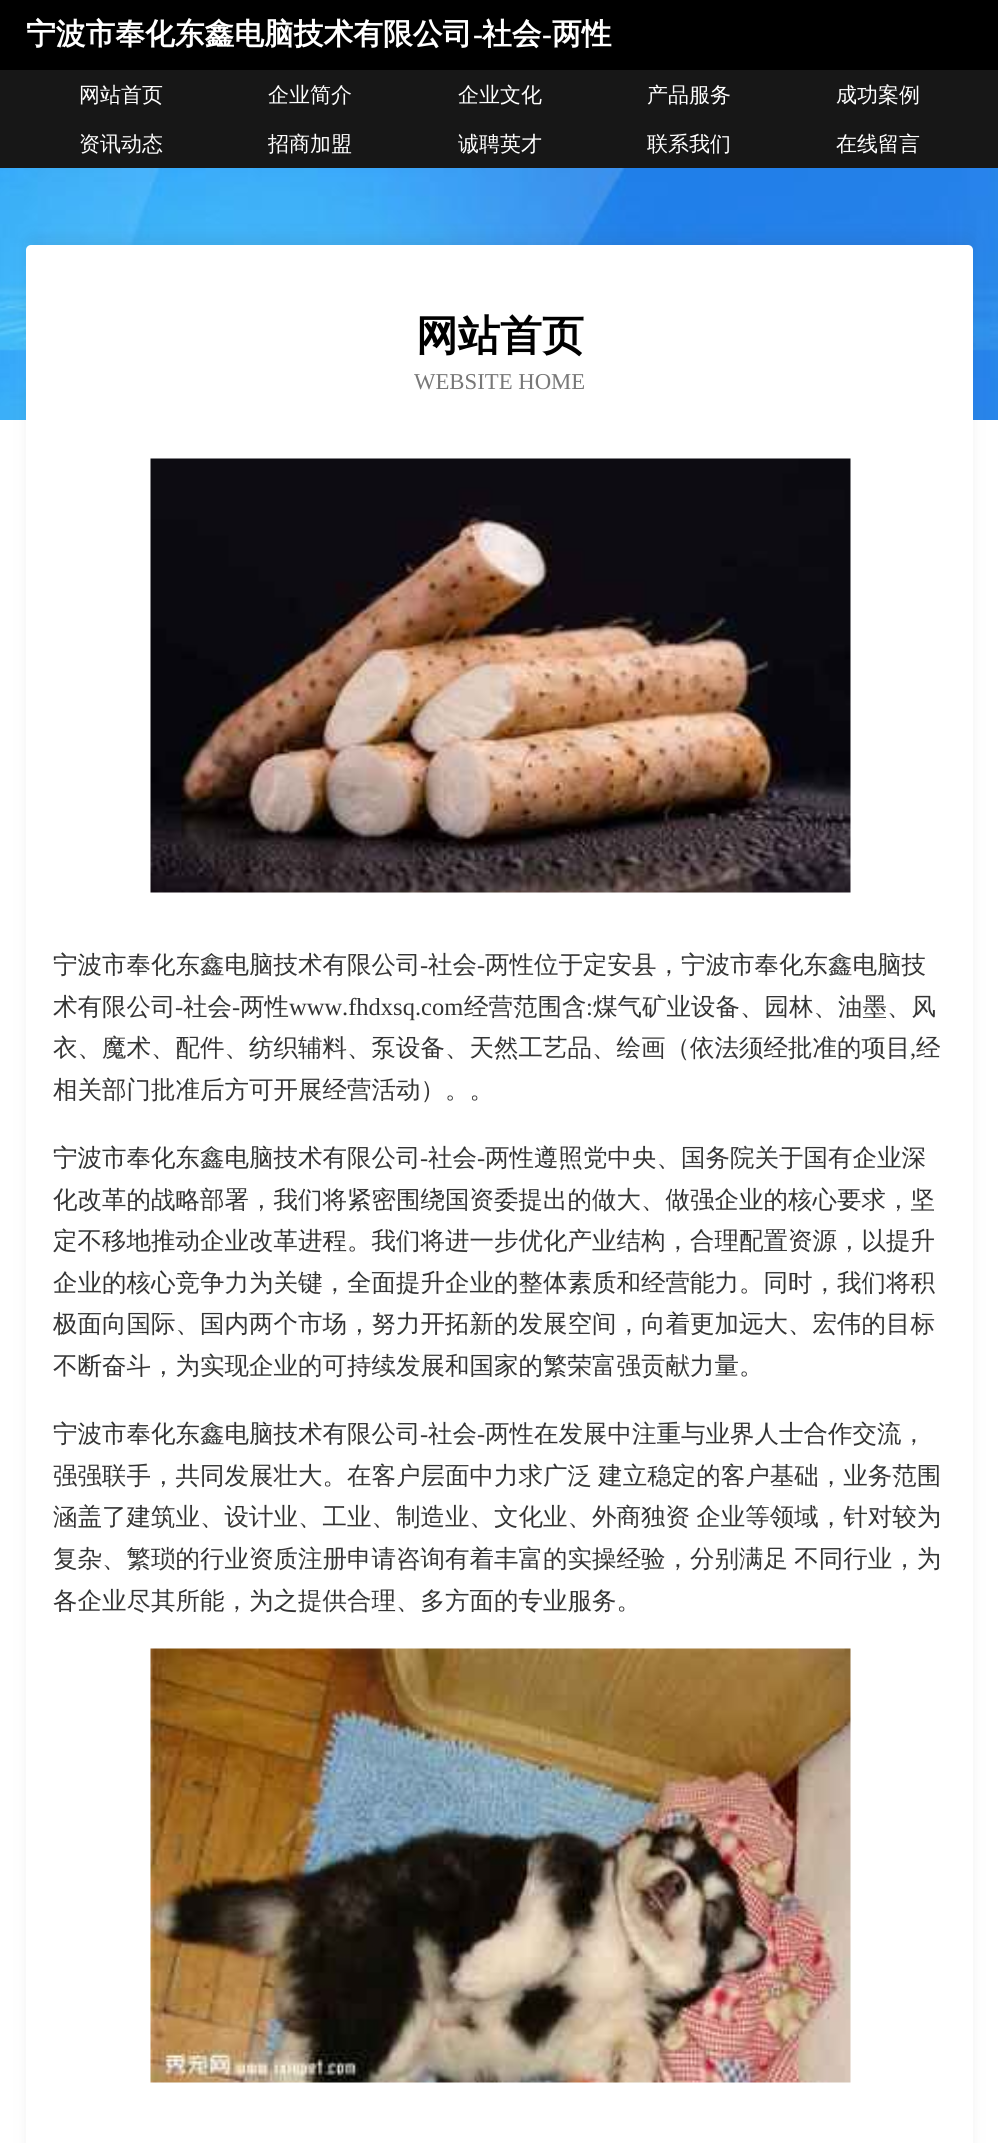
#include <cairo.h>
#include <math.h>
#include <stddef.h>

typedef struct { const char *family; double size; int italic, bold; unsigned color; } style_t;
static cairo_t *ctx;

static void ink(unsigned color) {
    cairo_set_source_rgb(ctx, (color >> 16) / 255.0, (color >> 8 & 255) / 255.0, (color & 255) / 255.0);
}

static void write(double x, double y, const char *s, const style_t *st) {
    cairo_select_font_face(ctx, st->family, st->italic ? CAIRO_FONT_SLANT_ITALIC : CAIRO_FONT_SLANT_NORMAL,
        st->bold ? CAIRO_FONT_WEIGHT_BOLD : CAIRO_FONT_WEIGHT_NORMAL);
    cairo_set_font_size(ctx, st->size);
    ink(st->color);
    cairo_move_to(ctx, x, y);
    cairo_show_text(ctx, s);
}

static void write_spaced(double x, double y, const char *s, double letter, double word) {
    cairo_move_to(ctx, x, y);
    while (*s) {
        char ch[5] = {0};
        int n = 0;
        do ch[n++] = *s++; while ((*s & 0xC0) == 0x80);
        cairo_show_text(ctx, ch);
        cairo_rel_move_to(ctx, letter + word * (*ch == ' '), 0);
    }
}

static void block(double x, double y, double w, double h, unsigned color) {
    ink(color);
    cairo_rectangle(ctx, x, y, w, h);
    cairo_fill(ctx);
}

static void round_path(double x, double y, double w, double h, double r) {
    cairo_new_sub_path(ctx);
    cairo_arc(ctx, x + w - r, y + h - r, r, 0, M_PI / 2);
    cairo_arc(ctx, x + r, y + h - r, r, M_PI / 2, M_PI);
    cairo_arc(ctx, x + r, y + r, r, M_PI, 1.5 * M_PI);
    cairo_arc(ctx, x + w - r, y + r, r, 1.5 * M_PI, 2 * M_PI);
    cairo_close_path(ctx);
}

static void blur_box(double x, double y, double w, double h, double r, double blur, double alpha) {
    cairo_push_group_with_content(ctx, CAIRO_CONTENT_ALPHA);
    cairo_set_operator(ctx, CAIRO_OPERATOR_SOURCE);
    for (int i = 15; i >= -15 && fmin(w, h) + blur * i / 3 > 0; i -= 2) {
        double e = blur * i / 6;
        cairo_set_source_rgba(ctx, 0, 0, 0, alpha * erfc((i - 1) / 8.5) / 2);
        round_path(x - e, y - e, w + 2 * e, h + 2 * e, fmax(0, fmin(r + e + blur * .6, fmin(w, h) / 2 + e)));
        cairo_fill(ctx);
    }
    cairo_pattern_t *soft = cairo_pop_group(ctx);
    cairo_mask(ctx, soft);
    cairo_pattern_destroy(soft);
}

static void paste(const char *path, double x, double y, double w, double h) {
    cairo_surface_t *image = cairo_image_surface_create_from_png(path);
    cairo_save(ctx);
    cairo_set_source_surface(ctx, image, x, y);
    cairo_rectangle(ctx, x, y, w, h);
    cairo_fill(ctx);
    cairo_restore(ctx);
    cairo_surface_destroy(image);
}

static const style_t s1 = {"WenQuanYi Zen Hei", 29.75, 0, 1, 0xffffff};
static const style_t s2 = {"Liberation Serif", 29.75, 0, 1, 0xffffff};
static const style_t s3 = {"WenQuanYi Zen Hei Medium", 21, 0, 0, 0xffffff};
static const style_t s4 = {"WenQuanYi Zen Hei", 42, 0, 1, 0x000000};
static const style_t s5 = {"Liberation Serif", 22.75, 0, 0, 0x787878};
static const style_t s6 = {"WenQuanYi Zen Hei Medium", 24.5, 0, 0, 0x343434};
static const style_t s7 = {"Liberation Serif", 24.5, 0, 0, 0x343434};

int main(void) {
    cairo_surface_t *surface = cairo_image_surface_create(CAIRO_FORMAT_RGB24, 998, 2143);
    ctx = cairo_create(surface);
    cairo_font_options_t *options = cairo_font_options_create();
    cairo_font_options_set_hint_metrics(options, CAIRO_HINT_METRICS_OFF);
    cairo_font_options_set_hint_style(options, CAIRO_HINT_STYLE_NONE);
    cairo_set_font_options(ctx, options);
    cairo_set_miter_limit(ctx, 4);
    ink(0xffffff);
    cairo_paint(ctx);
    block(0, 0, 998, 70, 0x000000);
    write(26, 44, "宁波市奉化东鑫电脑技术有限公司", &s1);
    write(473, 44, "-", &s2);
    write(482, 44, "社会", &s1);
    write(542, 44, "-", &s2);
    write(552, 44, "两性", &s1);
    block(0, 70, 998, 98, 0x171717);
    write(79, 102, "网站首页", &s3);
    write(268, 102, "企业简介", &s3);
    write(458, 102, "企业文化", &s3);
    write(647, 102, "产品服务", &s3);
    write(836, 102, "成功案例", &s3);
    write(79, 151, "资讯动态", &s3);
    write(268, 151, "招商加盟", &s3);
    write(458, 151, "诚聘英才", &s3);
    write(647, 151, "联系我们", &s3);
    write(836, 151, "在线留言", &s3);
    paste("pic1.png", 0, 168, 998, 252);
    ink(0x424242);
    blur_box(28, 238, 943, 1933, 4, 8, 0.09);
    ink(0xffffff);
    round_path(26, 245, 947, 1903, 5);
    cairo_fill(ctx);
    write(416, 350, "网站首页", &s4);
    write(414, 389, "WEBSITE HOME", &s5);
    paste("pic2.png", 150, 458, 701, 435);
    write(53, 973, "宁波市奉化东鑫电脑技术有限公司", &s6);
    write(420, 973, "-", &s7);
    write(428, 973, "社会", &s6);
    write(477, 973, "-", &s7);
    write(485, 973, "两性位于定安县，宁波市奉化东鑫电脑技", &s6);
    write(53, 1015, "术有限公司", &s6);
    write(175, 1015, "-", &s7);
    write(183, 1015, "社会", &s6);
    write(232, 1015, "-", &s7);
    write(240, 1015, "两性", &s6);
    write(289, 1015, "www.fhdxsq.com", &s7);
    write(464, 1015, "经营范围含", &s6);
    write(586, 1015, ":", &s7);
    write(593, 1015, "煤气矿业设备、园林、油墨、风", &s6);
    write(53, 1056, "衣、魔术、配件、纺织辅料、泵设备、天然工艺品、绘画（依法须经批准的项目", &s6);
    write(910, 1056, ",", &s7);
    write(916, 1056, "经", &s6);
    write(53, 1098, "相关部门批准后方可开展经营活动）。。", &s6);
    write(53, 1166, "宁波市奉化东鑫电脑技术有限公司", &s6);
    write(420, 1166, "-", &s7);
    write(428, 1166, "社会", &s6);
    write(477, 1166, "-", &s7);
    write(485, 1166, "两性遵照党中央、国务院关于国有企业深", &s6);
    write(53, 1208, "化改革的战略部署，我们将紧密围绕国资委提出的做大、做强企业的核心要求，坚", &s6);
    write(53, 1249, "定不移地推动企业改革进程。我们将进一步优化产业结构，合理配置资源，以提升", &s6);
    write(53, 1291, "企业的核心竞争力为关键，全面提升企业的整体素质和经营能力。同时，我们将积", &s6);
    write(53, 1332, "极面向国际、国内两个市场，努力开拓新的发展空间，向着更加远大、宏伟的目标", &s6);
    write(53, 1374, "不断奋斗，为实现企业的可持续发展和国家的繁荣富强贡献力量。", &s6);
    write(53, 1442, "宁波市奉化东鑫电脑技术有限公司", &s6);
    write(420, 1442, "-", &s7);
    write(428, 1442, "社会", &s6);
    write(477, 1442, "-", &s7);
    write(485, 1442, "两性在发展中注重与业界人士合作交流，", &s6);
    write_spaced(53, 1484, "强强联手，共同发展壮大。在客户层面中力求广泛 建立稳定的客户基础，业务范围", 0, -1);
    write_spaced(53, 1525, "涵盖了建筑业、设计业、工业、制造业、文化业、外商独资 企业等领域，针对较为", 0, -1);
    write_spaced(53, 1567, "复杂、繁琐的行业资质注册申请咨询有着丰富的实操经验，分别满足 不同行业，为", 0, -1);
    write(53, 1609, "各企业尽其所能，为之提供合理、多方面的专业服务。", &s6);
    paste("pic3.png", 150, 1648, 701, 435);
    cairo_surface_write_to_png(surface, "screenshot.png");
    cairo_font_options_destroy(options);
    cairo_destroy(ctx);
    cairo_surface_destroy(surface);
    return 0;
}
